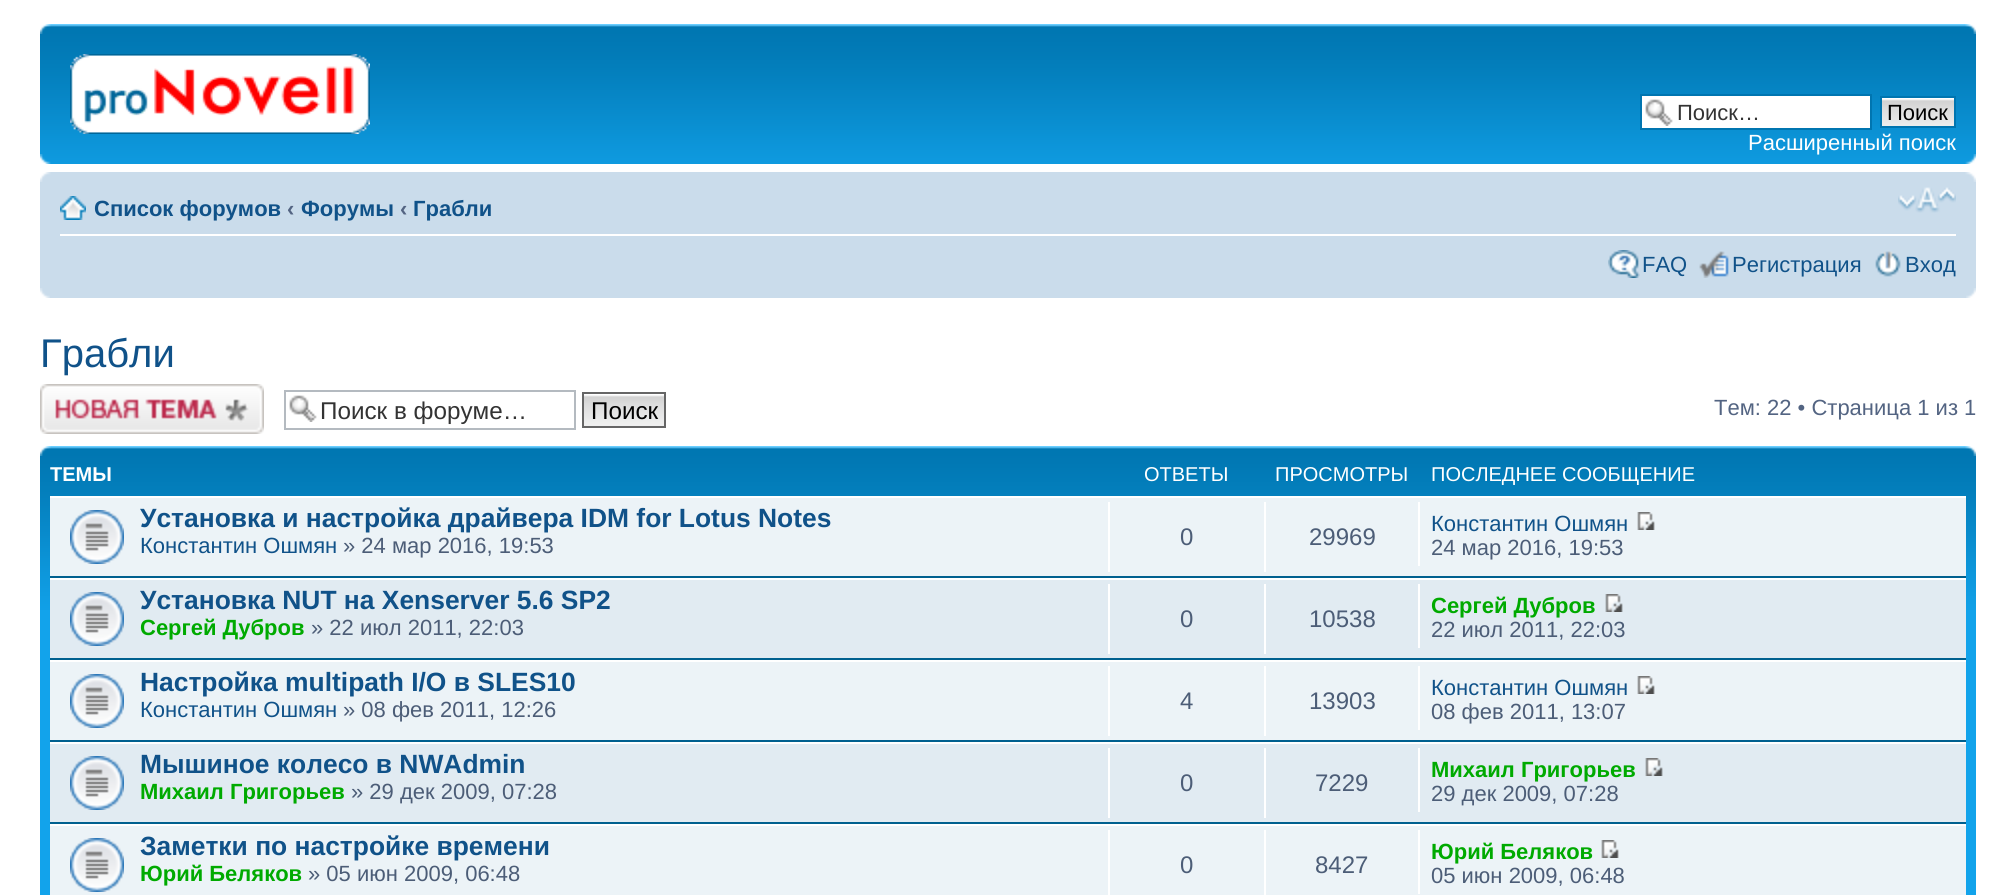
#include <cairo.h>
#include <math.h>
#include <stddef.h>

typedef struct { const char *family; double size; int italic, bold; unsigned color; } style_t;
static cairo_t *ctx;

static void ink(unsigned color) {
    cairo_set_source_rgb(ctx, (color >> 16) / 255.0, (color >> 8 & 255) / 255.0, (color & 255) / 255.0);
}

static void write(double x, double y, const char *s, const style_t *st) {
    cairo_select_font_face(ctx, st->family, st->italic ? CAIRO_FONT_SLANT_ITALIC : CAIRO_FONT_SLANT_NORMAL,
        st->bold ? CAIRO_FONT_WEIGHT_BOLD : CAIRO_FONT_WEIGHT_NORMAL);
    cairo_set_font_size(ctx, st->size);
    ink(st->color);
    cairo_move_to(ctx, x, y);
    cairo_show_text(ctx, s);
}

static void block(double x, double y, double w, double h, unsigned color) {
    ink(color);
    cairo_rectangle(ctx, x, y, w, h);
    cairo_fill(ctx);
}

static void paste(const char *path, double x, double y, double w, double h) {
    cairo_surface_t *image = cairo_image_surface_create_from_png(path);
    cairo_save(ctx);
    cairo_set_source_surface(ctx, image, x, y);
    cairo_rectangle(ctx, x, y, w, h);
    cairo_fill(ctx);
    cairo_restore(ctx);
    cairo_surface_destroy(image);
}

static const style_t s1 = {"Liberation Sans", 22, 0, 0, 0x333333};
static const style_t s2 = {"Liberation Sans", 22, 0, 0, 0x000000};
static const style_t s3 = {"Liberation Sans", 22, 0, 0, 0xffffff};
static const style_t s4 = {"Liberation Sans", 22, 0, 1, 0x105289};
static const style_t s5 = {"Liberation Sans", 22, 0, 1, 0x536482};
static const style_t s6 = {"Liberation Sans", 22, 0, 0, 0x105289};
static const style_t s7 = {"Liberation Sans", 40, 0, 0, 0x105289};
static const style_t s8 = {"Liberation Sans", 24.25, 0, 0, 0x333333};
static const style_t s9 = {"Liberation Sans", 24.25, 0, 0, 0x000000};
static const style_t s10 = {"Liberation Sans", 22, 0, 0, 0x536482};
static const style_t s11 = {"Liberation Sans", 20, 0, 1, 0xffffff};
static const style_t s12 = {"Liberation Sans", 20, 0, 0, 0xffffff};
static const style_t s13 = {"Liberation Sans", 26.4, 0, 1, 0x105289};
static const style_t s14 = {"Liberation Sans", 22, 0, 0, 0x4c5d77};
static const style_t s15 = {"Liberation Sans", 24, 0, 0, 0x4c5d77};
static const style_t s16 = {"Liberation Sans", 22, 0, 1, 0x00aa00};

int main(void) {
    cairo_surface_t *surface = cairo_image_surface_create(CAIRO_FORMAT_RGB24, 2016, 895);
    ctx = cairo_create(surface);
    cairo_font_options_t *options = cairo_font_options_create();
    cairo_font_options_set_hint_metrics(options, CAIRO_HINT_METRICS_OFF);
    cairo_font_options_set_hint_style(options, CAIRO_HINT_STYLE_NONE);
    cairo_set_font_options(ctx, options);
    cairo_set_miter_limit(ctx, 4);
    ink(0xffffff);
    cairo_paint(ctx);
    paste("pic1.png", 40, 24, 1936, 140);
    paste("pic2.png", 40, 24, 11, 10);
    paste("pic3.png", 1965, 24, 11, 10);
    paste("pic4.png", 70, 54, 300, 80);
    block(1642, 96, 228, 32, 0xffffff);
    paste("pic5.png", 1645, 99, 28, 27);
    cairo_rectangle(ctx, 1641, 95, 230, 34);
    ink(0x0075b0);
    cairo_stroke(ctx);
    write(1677, 120, "Поиск…", &s1);
    paste("pic6.png", 1882, 98, 72, 28);
    cairo_rectangle(ctx, 1881, 97, 74, 30);
    ink(0x0075b0);
    cairo_stroke(ctx);
    write(1887, 120, "Поиск", &s2);
    write(1748, 150, "Расширенный поиск", &s3);
    paste("pic7.png", 40, 154, 11, 10);
    paste("pic8.png", 1965, 154, 11, 10);
    block(40, 172, 1936, 126, 0xcadceb);
    paste("pic9.png", 40, 172, 11, 10);
    paste("pic10.png", 1965, 172, 11, 10);
    block(60, 234, 1896, 2, 0xffffff);
    paste("pic11.png", 60, 196, 26, 24);
    write(94, 216, "Список форумов", &s4);
    write(287, 216, "‹", &s5);
    write(301, 216, "Форумы", &s4);
    write(400, 216, "‹", &s5);
    write(413, 216, "Грабли", &s4);
    paste("pic12.png", 1898, 187, 58, 26);
    paste("pic13.png", 1608, 250, 32, 28);
    write(1642, 272, "FAQ", &s6);
    paste("pic14.png", 1699, 251, 30, 27);
    write(1732, 272, "Регистрация", &s6);
    paste("pic15.png", 1875, 251, 26, 26);
    write(1905, 272, "Вход", &s6);
    paste("pic16.png", 40, 288, 10, 10);
    paste("pic17.png", 1966, 288, 10, 10);
    write(40, 367, "Грабли", &s7);
    paste("pic18.png", 40, 384, 224, 50);
    paste("pic5.png", 289, 395, 28, 27);
    cairo_rectangle(ctx, 285, 391, 290, 38);
    ink(0xb4bac0);
    cairo_stroke(ctx);
    write(320, 419, "Поиск в форуме…", &s8);
    paste("pic19.png", 584, 394, 80, 32);
    cairo_rectangle(ctx, 583, 393, 82, 34);
    ink(0x666666);
    cairo_stroke(ctx);
    write(591, 419, "Поиск", &s9);
    write(1714, 415, "Тем: 22 • Страница 1 из 1", &s10);
    block(40, 610, 1936, 285, 0x12a3eb);
    paste("pic20.png", 40, 446, 1936, 164);
    paste("pic2.png", 40, 446, 11, 10);
    paste("pic3.png", 1965, 446, 11, 10);
    write(50, 481, "ТЕМЫ", &s11);
    write(1144, 481, "ОТВЕТЫ", &s12);
    write(1275, 481, "ПРОСМОТРЫ", &s12);
    write(1431, 481, "ПОСЛЕДНЕЕ СООБЩЕНИЕ", &s12);
    block(50, 498, 1916, 78, 0xecf3f7);
    block(50, 496, 1916, 2, 0xffffff);
    block(50, 576, 1916, 2, 0x00608f);
    paste("pic21.png", 70, 510, 54, 54);
    write(140, 527, "Установка и настройка драйвера IDM for Lotus Notes", &s13);
    write(140, 553, "Константин Ошмян", &s6);
    write(343, 553, "» 24 мар 2016, 19:53", &s14);
    block(1108, 502, 2, 70, 0xffffff);
    write(1180, 545, "0", &s15);
    block(1264, 502, 2, 70, 0xffffff);
    write(1309, 545, "29969", &s15);
    block(1418, 502, 2, 64, 0xffffff);
    write(1431, 531, "Константин Ошмян", &s6);
    paste("pic22.png", 1637, 512, 18, 18);
    write(1431, 555, "24 мар 2016, 19:53", &s14);
    block(50, 580, 1916, 78, 0xe1ebf2);
    block(50, 578, 1916, 2, 0xffffff);
    block(50, 658, 1916, 2, 0x00608f);
    paste("pic23.png", 70, 592, 54, 54);
    write(140, 609, "Установка NUT на Xenserver 5.6 SP2", &s13);
    write(140, 635, "Сергей Дубров", &s16);
    write(311, 635, "» 22 июл 2011, 22:03", &s14);
    block(1108, 584, 2, 70, 0xffffff);
    write(1180, 627, "0", &s15);
    block(1264, 584, 2, 70, 0xffffff);
    write(1309, 627, "10538", &s15);
    block(1418, 584, 2, 64, 0xffffff);
    write(1431, 613, "Сергей Дубров", &s16);
    paste("pic24.png", 1605, 594, 18, 18);
    write(1431, 637, "22 июл 2011, 22:03", &s14);
    block(50, 662, 1916, 78, 0xecf3f7);
    block(50, 660, 1916, 2, 0xffffff);
    block(50, 740, 1916, 2, 0x00608f);
    paste("pic21.png", 70, 674, 54, 54);
    write(140, 691, "Настройка multipath I/O в SLES10", &s13);
    write(140, 717, "Константин Ошмян", &s6);
    write(343, 717, "» 08 фев 2011, 12:26", &s14);
    block(1108, 666, 2, 70, 0xffffff);
    write(1180, 709, "4", &s15);
    block(1264, 666, 2, 70, 0xffffff);
    write(1309, 709, "13903", &s15);
    block(1418, 666, 2, 64, 0xffffff);
    write(1431, 695, "Константин Ошмян", &s6);
    paste("pic22.png", 1637, 676, 18, 18);
    write(1431, 719, "08 фев 2011, 13:07", &s14);
    block(50, 744, 1916, 78, 0xe1ebf2);
    block(50, 742, 1916, 2, 0xffffff);
    block(50, 822, 1916, 2, 0x00608f);
    paste("pic23.png", 70, 756, 54, 54);
    write(140, 773, "Мышиное колесо в NWAdmin", &s13);
    write(140, 799, "Михаил Григорьев", &s16);
    write(351, 799, "» 29 дек 2009, 07:28", &s14);
    block(1108, 748, 2, 70, 0xffffff);
    write(1180, 791, "0", &s15);
    block(1264, 748, 2, 70, 0xffffff);
    write(1315, 791, "7229", &s15);
    block(1418, 748, 2, 64, 0xffffff);
    write(1431, 777, "Михаил Григорьев", &s16);
    paste("pic24.png", 1645, 758, 18, 18);
    write(1431, 801, "29 дек 2009, 07:28", &s14);
    block(50, 826, 1916, 69, 0xecf3f7);
    block(50, 824, 1916, 2, 0xffffff);
    paste("pic21.png", 70, 838, 54, 54);
    write(140, 855, "Заметки по настройке времени", &s13);
    write(140, 881, "Юрий Беляков", &s16);
    write(308, 881, "» 05 июн 2009, 06:48", &s14);
    block(1108, 830, 2, 65, 0xffffff);
    write(1180, 873, "0", &s15);
    block(1264, 830, 2, 65, 0xffffff);
    write(1315, 873, "8427", &s15);
    block(1418, 830, 2, 64, 0xffffff);
    write(1431, 859, "Юрий Беляков", &s16);
    paste("pic22.png", 1601, 840, 18, 18);
    write(1431, 883, "05 июн 2009, 06:48", &s14);
    cairo_surface_write_to_png(surface, "screenshot.png");
    cairo_font_options_destroy(options);
    cairo_destroy(ctx);
    cairo_surface_destroy(surface);
    return 0;
}
